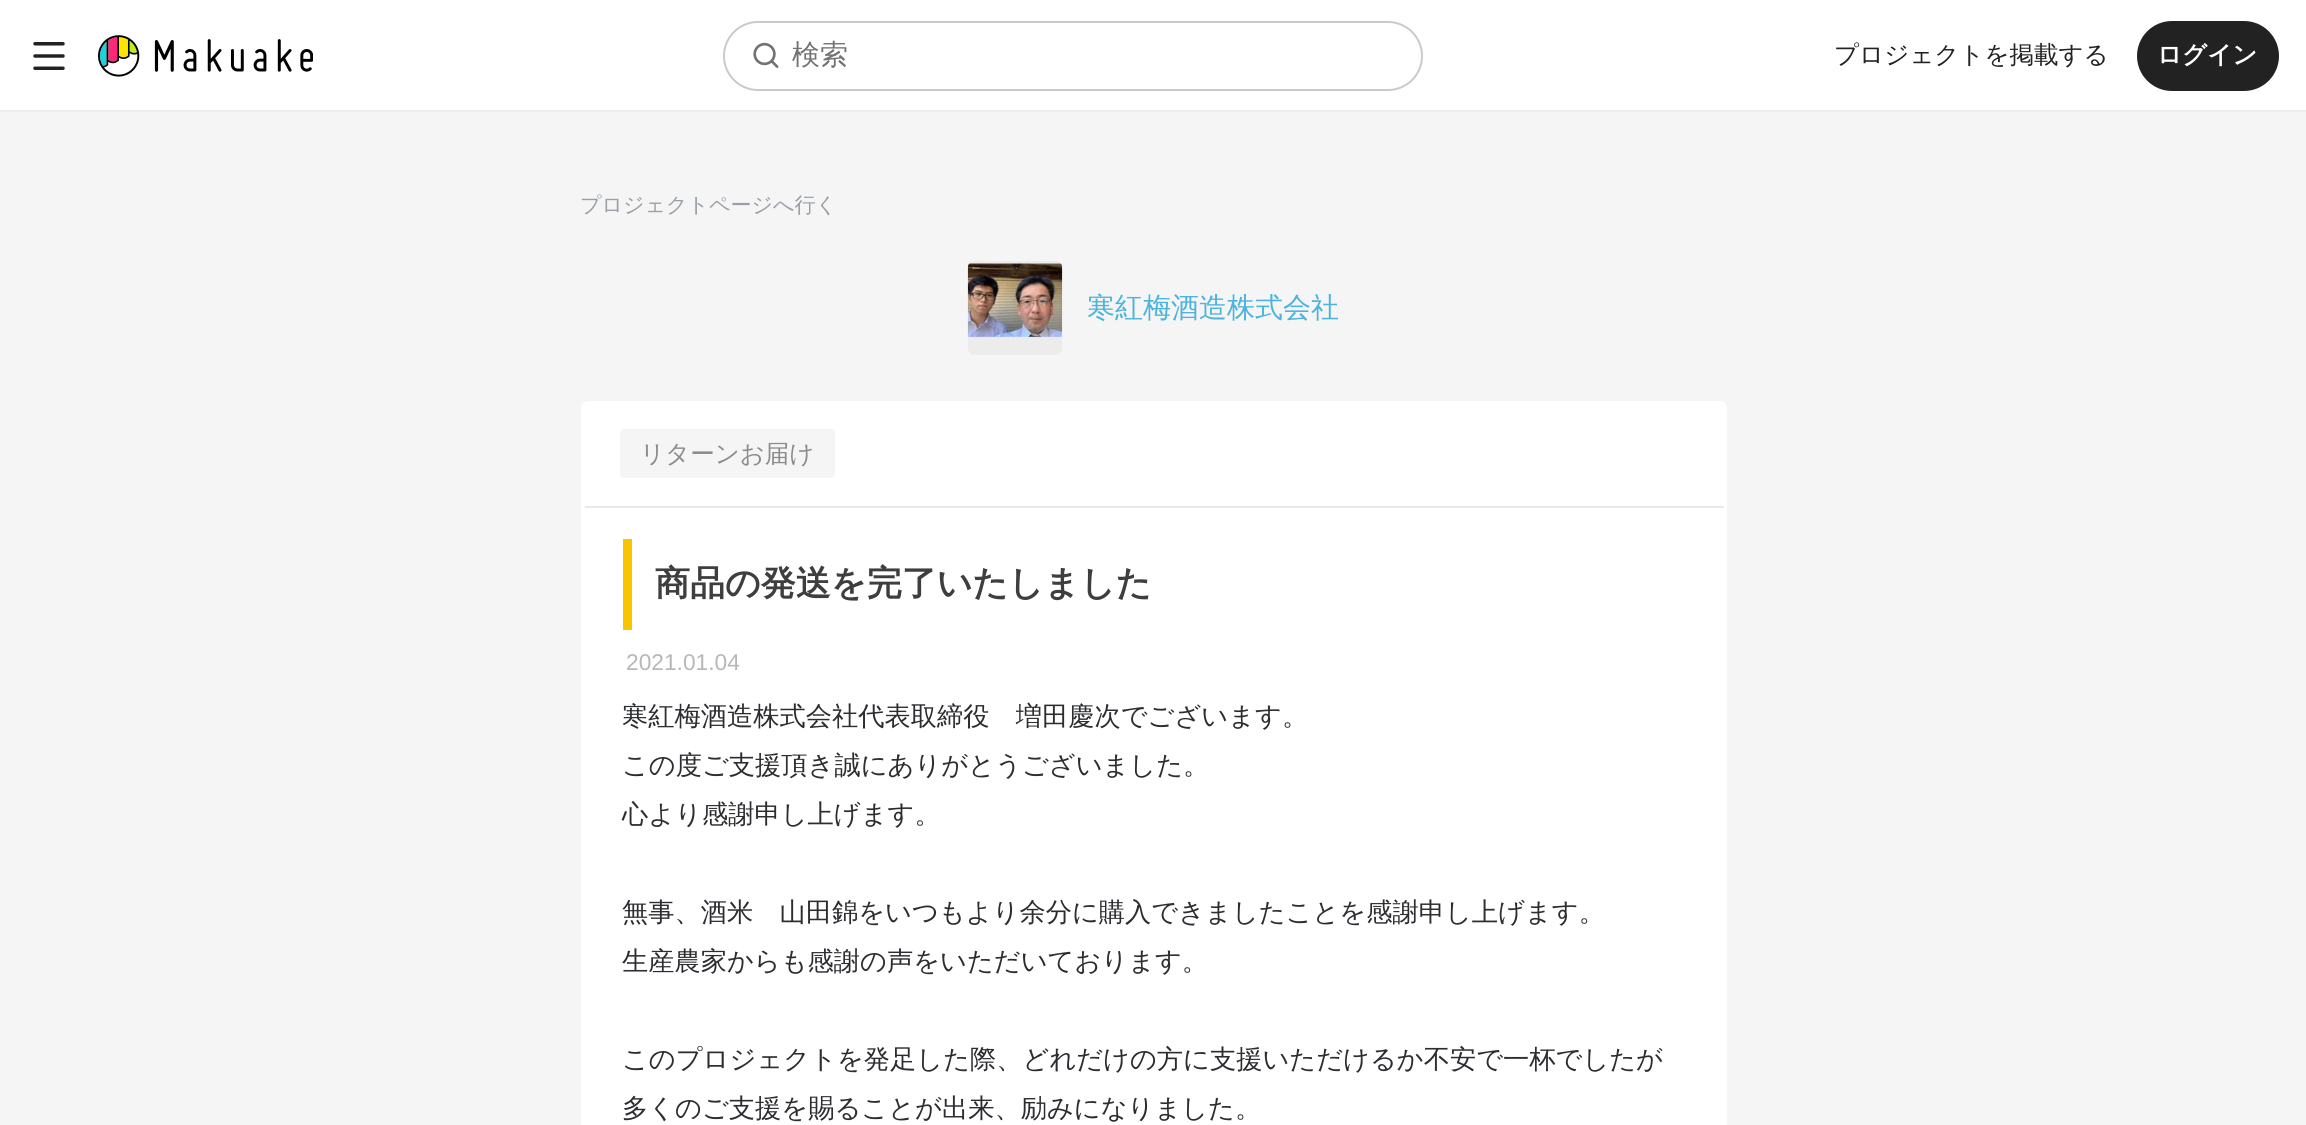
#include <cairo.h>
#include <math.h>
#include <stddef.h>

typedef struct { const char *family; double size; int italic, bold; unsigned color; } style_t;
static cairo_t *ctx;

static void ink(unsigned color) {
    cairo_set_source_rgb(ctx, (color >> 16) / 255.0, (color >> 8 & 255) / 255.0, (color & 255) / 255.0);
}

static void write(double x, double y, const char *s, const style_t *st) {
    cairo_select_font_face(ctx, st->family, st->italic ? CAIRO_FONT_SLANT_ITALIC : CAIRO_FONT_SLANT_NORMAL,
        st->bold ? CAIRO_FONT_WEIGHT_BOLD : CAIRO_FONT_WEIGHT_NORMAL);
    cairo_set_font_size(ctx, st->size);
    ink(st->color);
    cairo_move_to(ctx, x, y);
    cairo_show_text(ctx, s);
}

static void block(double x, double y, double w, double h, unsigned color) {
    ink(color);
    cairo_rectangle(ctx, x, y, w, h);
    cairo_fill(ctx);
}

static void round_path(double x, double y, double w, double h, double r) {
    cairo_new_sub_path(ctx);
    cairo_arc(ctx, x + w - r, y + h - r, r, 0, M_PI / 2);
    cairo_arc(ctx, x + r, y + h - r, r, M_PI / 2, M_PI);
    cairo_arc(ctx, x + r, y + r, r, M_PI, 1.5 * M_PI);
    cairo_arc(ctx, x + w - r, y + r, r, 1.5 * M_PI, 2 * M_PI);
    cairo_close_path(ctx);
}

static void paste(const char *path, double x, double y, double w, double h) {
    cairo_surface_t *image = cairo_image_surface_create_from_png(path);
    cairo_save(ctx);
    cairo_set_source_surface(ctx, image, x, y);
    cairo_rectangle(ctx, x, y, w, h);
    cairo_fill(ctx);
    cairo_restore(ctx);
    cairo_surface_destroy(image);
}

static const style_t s1 = {"WenQuanYi Zen Hei Medium", 28, 0, 0, 0x727272};
static const style_t s2 = {"WenQuanYi Zen Hei Medium", 24.5, 0, 0, 0x222222};
static const style_t s3 = {"WenQuanYi Zen Hei", 24.5, 0, 1, 0xffffff};
static const style_t s4 = {"WenQuanYi Zen Hei Medium", 21, 0, 0, 0x989fa9};
static const style_t s5 = {"WenQuanYi Zen Hei Medium", 28, 0, 0, 0x4ab3df};
static const style_t s6 = {"WenQuanYi Zen Hei Medium", 24.5, 0, 0, 0x8b8b8b};
static const style_t s7 = {"WenQuanYi Zen Hei", 35, 0, 1, 0x3e3e3e};
static const style_t s8 = {"Liberation Sans", 22.75, 0, 0, 0xb7b7b7};
static const style_t s9 = {"WenQuanYi Zen Hei Medium", 26.25, 0, 0, 0x2c2d30};

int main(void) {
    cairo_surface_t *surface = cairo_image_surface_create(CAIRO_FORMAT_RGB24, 2306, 1125);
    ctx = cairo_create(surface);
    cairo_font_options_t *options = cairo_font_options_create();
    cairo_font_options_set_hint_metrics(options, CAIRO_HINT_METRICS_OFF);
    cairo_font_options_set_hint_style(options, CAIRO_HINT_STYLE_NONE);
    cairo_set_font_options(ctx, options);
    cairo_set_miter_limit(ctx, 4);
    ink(0xffffff);
    cairo_paint(ctx);
    block(0, 110, 2306, 2, 0xededed);
    paste("pic1.png", 33, 42, 32, 28);
    paste("pic2.png", 98, 35, 215, 42);
    round_path(724, 22, 698, 68, 34);
    ink(0xcacaca);
    cairo_stroke(ctx);
    paste("pic3.png", 753, 42, 26, 26);
    write(792, 64, "検索", &s1);
    write(1834, 63, "プロジェクトを掲載する", &s2);
    round_path(2137, 21, 142, 70, 35);
    cairo_fill(ctx);
    write(2157, 63, "ログイン", &s3);
    block(0, 112, 2306, 1013, 0xf5f5f5);
    write(580, 212, "プロジェクトページへ行く", &s4);
    ink(0xececec);
    round_path(968, 261, 94, 94, 7);
    cairo_fill(ctx);
    paste("pic4.png", 967, 263, 96, 75);
    write(1087, 317, "寒紅梅酒造株式会社", &s5);
    ink(0xffffff);
    round_path(581, 401, 1146, 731, 7);
    cairo_fill(ctx);
    block(585, 506, 1139, 2, 0xeaeaea);
    ink(0xf5f5f5);
    round_path(620, 429, 215, 49, 4);
    cairo_fill(ctx);
    write(640, 462, "リターンお届け", &s6);
    block(623, 539, 9, 91, 0xf7c600);
    write(655, 595, "商品の発送を完了いたしました", &s7);
    write(626, 670, "2021.01.04", &s8);
    write(622, 725, "寒紅梅酒造株式会社代表取締役　増田慶次でございます。", &s9);
    write(622, 774, "この度ご支援頂き誠にありがとうございました。", &s9);
    write(622, 823, "心より感謝申し上げます。", &s9);
    write(622, 921, "無事、酒米　山田錦をいつもより余分に購入できましたことを感謝申し上げます。", &s9);
    write(622, 970, "生産農家からも感謝の声をいただいております。", &s9);
    write(622, 1068, "このプロジェクトを発足した際、どれだけの方に支援いただけるか不安で一杯でしたが", &s9);
    write(622, 1117, "多くのご支援を賜ることが出来、励みになりました。", &s9);
    cairo_surface_write_to_png(surface, "screenshot.png");
    cairo_font_options_destroy(options);
    cairo_destroy(ctx);
    cairo_surface_destroy(surface);
    return 0;
}
